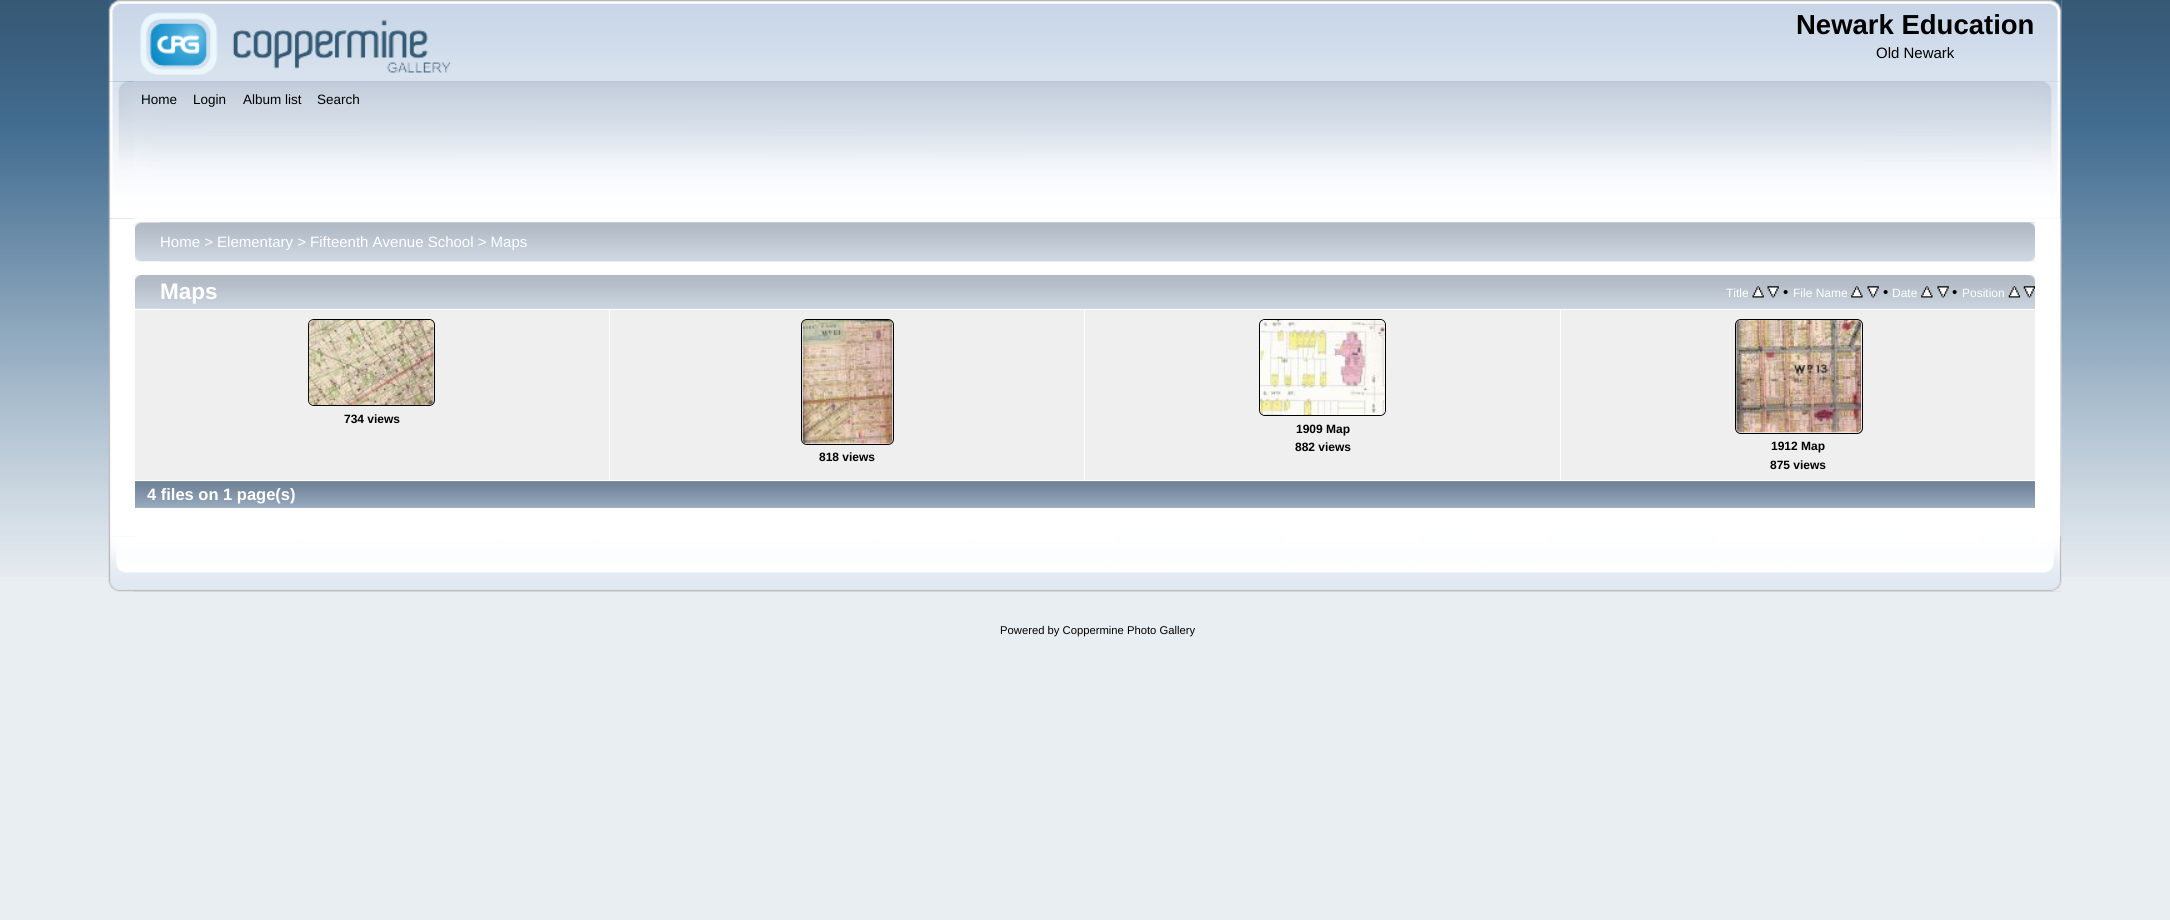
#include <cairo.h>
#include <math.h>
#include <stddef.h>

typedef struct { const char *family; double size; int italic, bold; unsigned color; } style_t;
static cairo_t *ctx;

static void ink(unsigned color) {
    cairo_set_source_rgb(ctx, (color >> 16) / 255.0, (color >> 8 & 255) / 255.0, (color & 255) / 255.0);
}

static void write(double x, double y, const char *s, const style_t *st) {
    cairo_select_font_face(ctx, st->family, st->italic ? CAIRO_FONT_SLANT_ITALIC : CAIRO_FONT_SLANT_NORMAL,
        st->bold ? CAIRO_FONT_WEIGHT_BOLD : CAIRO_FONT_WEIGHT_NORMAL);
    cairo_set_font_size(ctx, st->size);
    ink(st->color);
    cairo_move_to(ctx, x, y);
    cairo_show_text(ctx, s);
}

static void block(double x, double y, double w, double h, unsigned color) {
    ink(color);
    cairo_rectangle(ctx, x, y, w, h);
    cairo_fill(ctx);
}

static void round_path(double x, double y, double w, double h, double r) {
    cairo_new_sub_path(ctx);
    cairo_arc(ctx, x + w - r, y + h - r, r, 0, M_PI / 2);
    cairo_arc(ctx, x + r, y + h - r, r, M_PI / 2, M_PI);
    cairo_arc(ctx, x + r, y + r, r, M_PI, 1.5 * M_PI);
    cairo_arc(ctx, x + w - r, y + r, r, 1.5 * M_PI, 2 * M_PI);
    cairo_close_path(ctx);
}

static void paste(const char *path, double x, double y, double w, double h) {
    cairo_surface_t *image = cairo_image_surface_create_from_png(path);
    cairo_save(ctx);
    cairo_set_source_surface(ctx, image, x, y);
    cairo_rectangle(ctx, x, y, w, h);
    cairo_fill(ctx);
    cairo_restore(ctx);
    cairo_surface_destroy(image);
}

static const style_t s1 = {"Liberation Sans", 27.5, 0, 1, 0x000000};
static const style_t s2 = {"Liberation Sans", 15, 0, 0, 0x000000};
static const style_t s3 = {"Liberation Sans", 13.5, 0, 0, 0x000000};
static const style_t s4 = {"Liberation Sans", 15, 0, 0, 0xffffff};
static const style_t s5 = {"Liberation Sans", 22.5, 0, 1, 0xffffff};
static const style_t s6 = {"Liberation Sans", 12, 0, 0, 0xffffff};
static const style_t s7 = {"Liberation Sans", 12, 0, 1, 0x000000};
static const style_t s8 = {"Liberation Sans", 16.5, 0, 1, 0xffffff};
static const style_t s9 = {"Liberation Sans", 11.25, 0, 0, 0x000000};

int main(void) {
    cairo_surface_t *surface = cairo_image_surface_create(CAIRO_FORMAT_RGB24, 2170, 920);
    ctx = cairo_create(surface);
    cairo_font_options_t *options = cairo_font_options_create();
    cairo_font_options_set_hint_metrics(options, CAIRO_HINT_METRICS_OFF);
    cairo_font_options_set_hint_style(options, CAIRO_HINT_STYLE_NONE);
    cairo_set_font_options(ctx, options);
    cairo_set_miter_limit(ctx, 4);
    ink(0xe9eef2);
    cairo_paint(ctx);
    paste("pic1.png", 0, 0, 2170, 577);
    paste("pic2.png", 108, 0, 1954, 82);
    paste("pic3.png", 133, 0, 1929, 82);
    paste("pic4.png", 140, 12, 311, 63);
    write(1796, 34, "Newark Education", &s1);
    write(1876, 58, "Old Newark", &s2);
    paste("pic5.png", 108, 81, 1954, 138);
    paste("pic6.png", 134, 81, 1928, 138);
    write(141, 104, "Home", &s3);
    write(193, 104, "Login", &s3);
    write(243, 104, "Album list", &s3);
    write(317, 104, "Search", &s3);
    paste("pic7.png", 108, 218, 1954, 319);
    paste("pic8.png", 134, 219, 1928, 318);
    paste("pic9.png", 135, 222, 1900, 40);
    paste("pic10.png", 160, 222, 1875, 40);
    write(160, 247, "Home > Elementary > Fifteenth Avenue School > Maps", &s4);
    paste("pic11.png", 135, 275, 1900, 34);
    paste("pic12.png", 160, 275, 1875, 34);
    write(160, 299, "Maps", &s5);
    write(1726, 297, "Title", &s6);
    paste("pic13.png", 1752, 286, 12, 12);
    paste("pic14.png", 1767, 286, 12, 12);
    write(1783, 297, "•", &s2);
    write(1793, 297, "File Name", &s6);
    paste("pic15.png", 1851, 286, 12, 12);
    paste("pic14.png", 1867, 286, 12, 12);
    write(1883, 297, "•", &s2);
    write(1892, 297, "Date", &s6);
    paste("pic15.png", 1921, 286, 12, 12);
    paste("pic14.png", 1937, 286, 12, 12);
    write(1952, 297, "•", &s2);
    write(1962, 297, "Position", &s6);
    paste("pic16.png", 2008, 286, 12, 12);
    paste("pic17.png", 2023, 286, 12, 12);
    block(135, 310, 474, 170, 0xefefef);
    round_path(308.5, 319.5, 126, 86, 5.5);
    ink(0x000000);
    cairo_set_line_width(ctx, 1);
    cairo_stroke(ctx);
    paste("pic18.png", 308, 320, 126, 85);
    write(344, 423, "734 views", &s7);
    block(1085, 310, 475, 170, 0xefefef);
    round_path(1259.5, 319.5, 126, 96, 5.5);
    ink(0x000000);
    cairo_stroke(ctx);
    paste("pic19.png", 1260, 320, 125, 95);
    write(1296, 433, "1909 Map", &s7);
    write(1295, 451, "882 views", &s7);
    block(610, 310, 474, 170, 0xefefef);
    round_path(801.5, 319.5, 92, 125, 5.5);
    ink(0x000000);
    cairo_stroke(ctx);
    paste("pic20.png", 802, 320, 91, 124);
    write(819, 461, "818 views", &s7);
    block(1561, 310, 474, 170, 0xefefef);
    round_path(1735.5, 319.5, 127, 114, 5.5);
    ink(0x000000);
    cairo_stroke(ctx);
    paste("pic21.png", 1736, 320, 126, 113);
    write(1771, 450, "1912 Map", &s7);
    write(1770, 469, "875 views", &s7);
    block(135, 481, 1900, 27, 0xa8b8cc);
    paste("pic22.png", 135, 481, 1900, 27);
    write(147, 500, "4 files on 1 page(s)", &s8);
    paste("pic23.png", 108, 536, 1954, 56);
    paste("pic24.png", 134, 536, 1928, 56);
    write(1000, 634, "Powered by Coppermine Photo Gallery", &s9);
    cairo_surface_write_to_png(surface, "screenshot.png");
    cairo_font_options_destroy(options);
    cairo_destroy(ctx);
    cairo_surface_destroy(surface);
    return 0;
}
